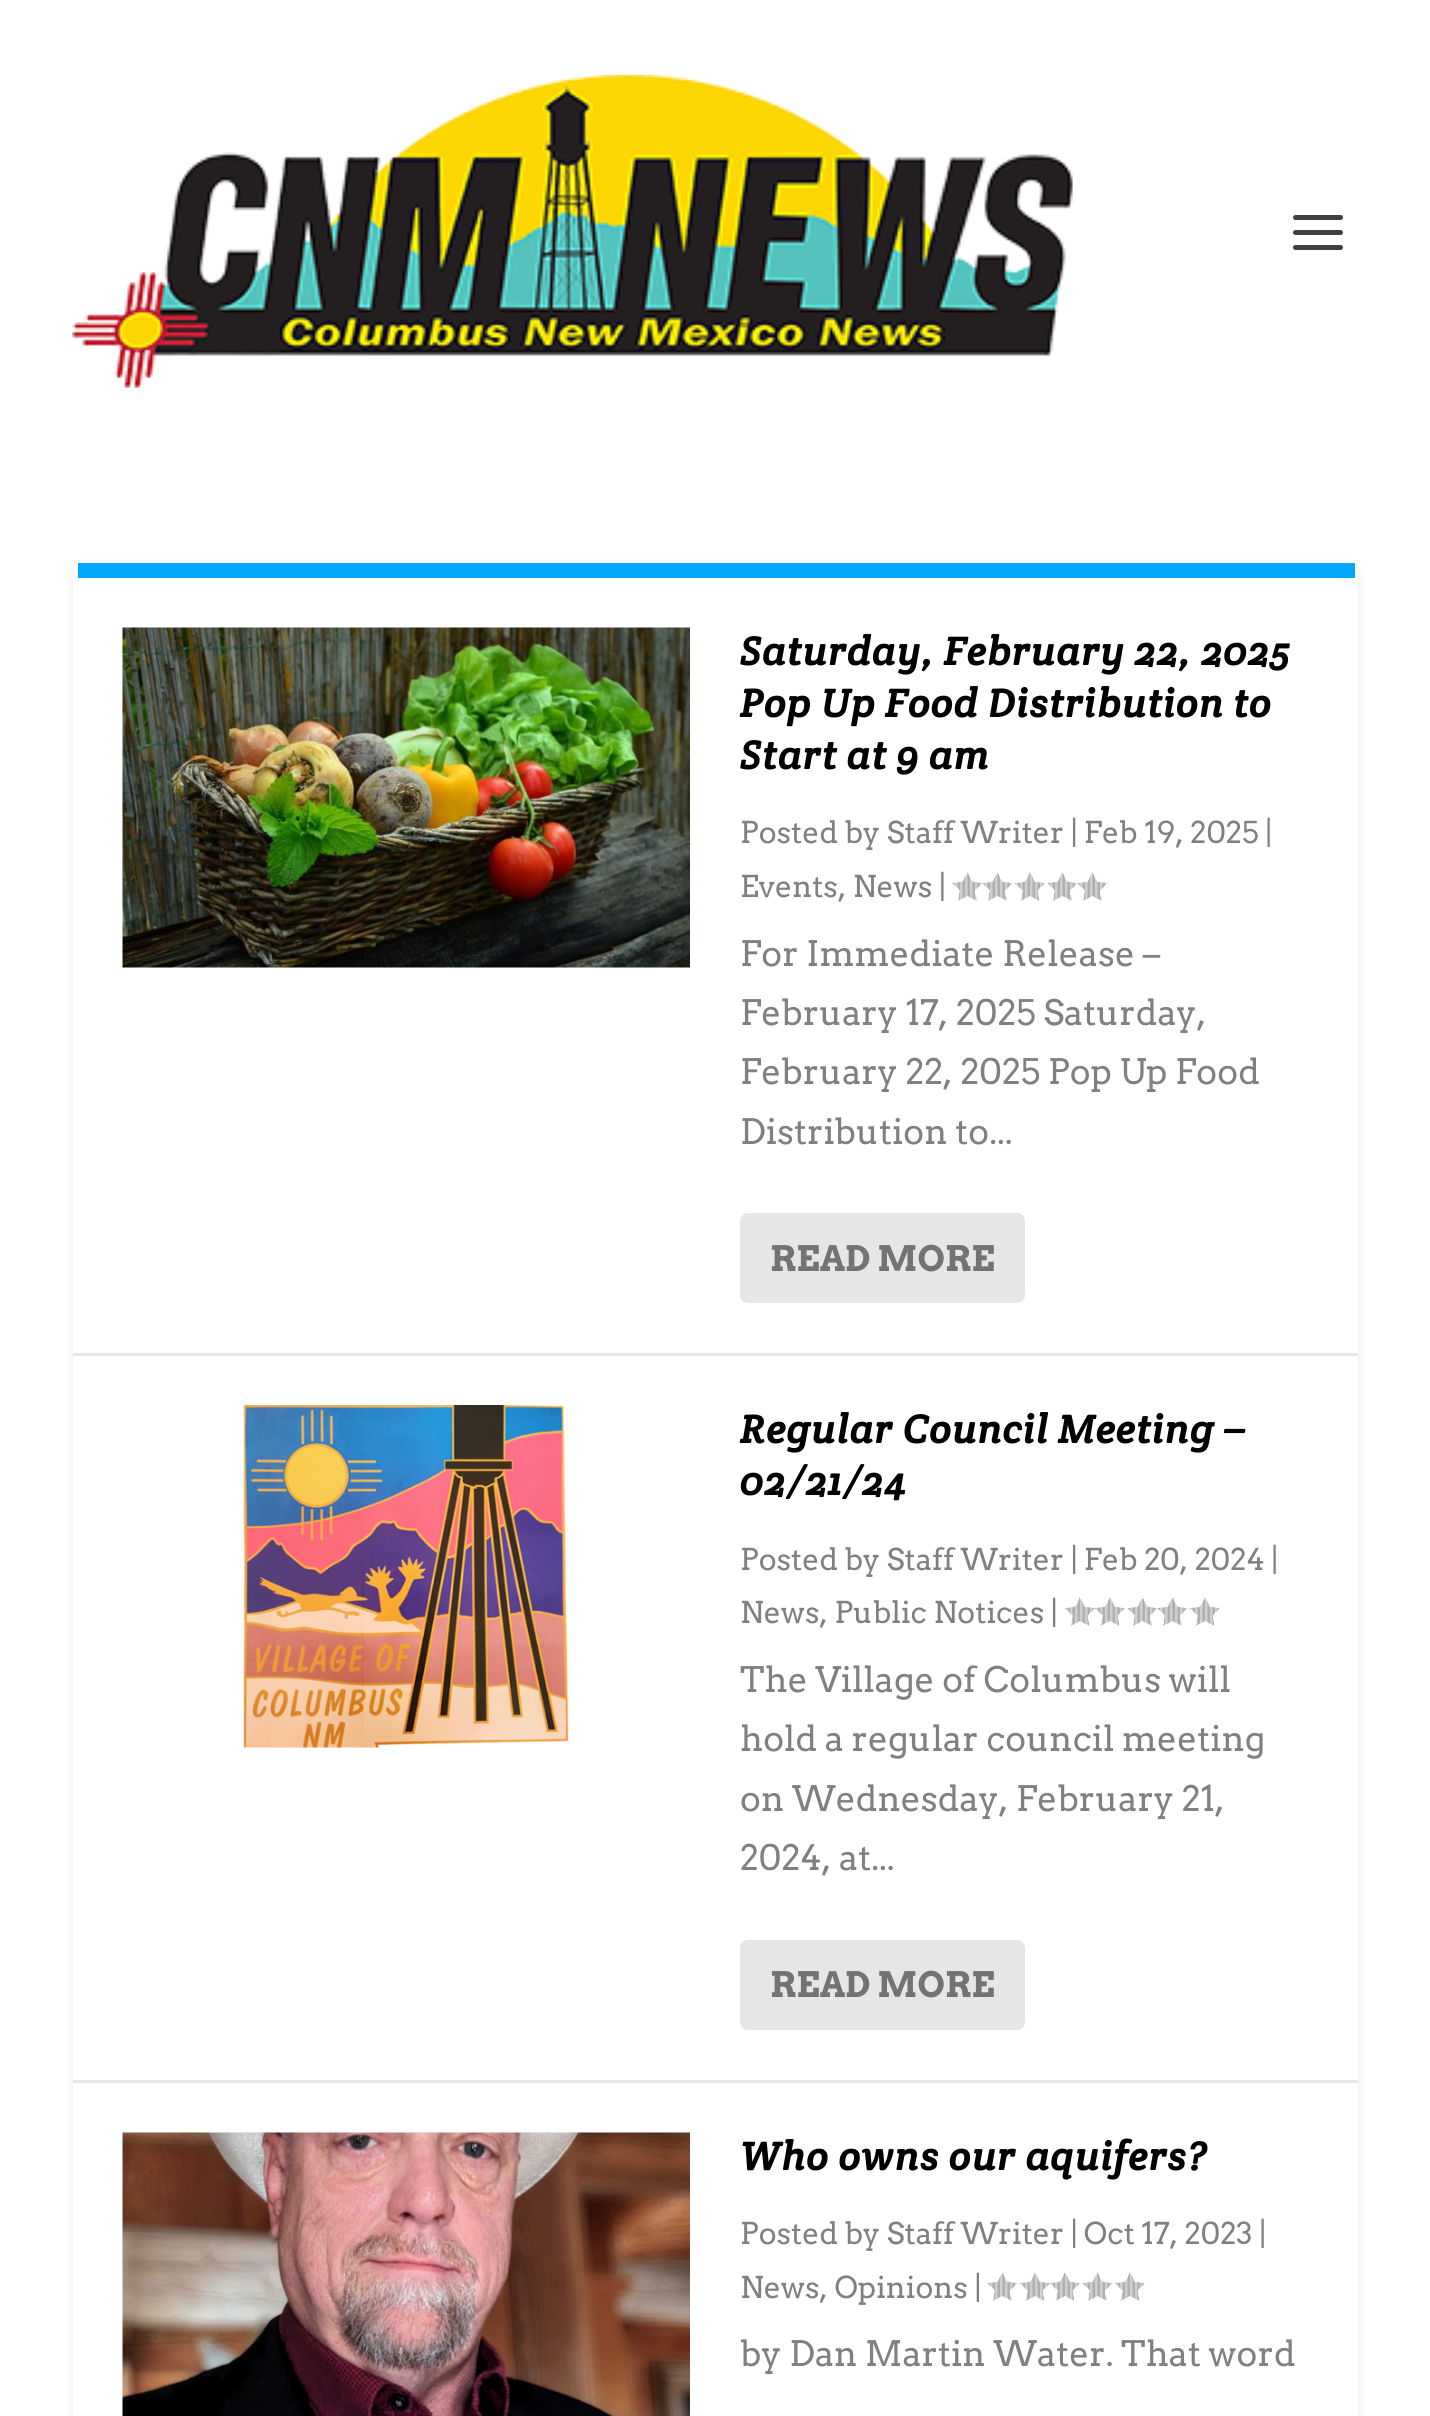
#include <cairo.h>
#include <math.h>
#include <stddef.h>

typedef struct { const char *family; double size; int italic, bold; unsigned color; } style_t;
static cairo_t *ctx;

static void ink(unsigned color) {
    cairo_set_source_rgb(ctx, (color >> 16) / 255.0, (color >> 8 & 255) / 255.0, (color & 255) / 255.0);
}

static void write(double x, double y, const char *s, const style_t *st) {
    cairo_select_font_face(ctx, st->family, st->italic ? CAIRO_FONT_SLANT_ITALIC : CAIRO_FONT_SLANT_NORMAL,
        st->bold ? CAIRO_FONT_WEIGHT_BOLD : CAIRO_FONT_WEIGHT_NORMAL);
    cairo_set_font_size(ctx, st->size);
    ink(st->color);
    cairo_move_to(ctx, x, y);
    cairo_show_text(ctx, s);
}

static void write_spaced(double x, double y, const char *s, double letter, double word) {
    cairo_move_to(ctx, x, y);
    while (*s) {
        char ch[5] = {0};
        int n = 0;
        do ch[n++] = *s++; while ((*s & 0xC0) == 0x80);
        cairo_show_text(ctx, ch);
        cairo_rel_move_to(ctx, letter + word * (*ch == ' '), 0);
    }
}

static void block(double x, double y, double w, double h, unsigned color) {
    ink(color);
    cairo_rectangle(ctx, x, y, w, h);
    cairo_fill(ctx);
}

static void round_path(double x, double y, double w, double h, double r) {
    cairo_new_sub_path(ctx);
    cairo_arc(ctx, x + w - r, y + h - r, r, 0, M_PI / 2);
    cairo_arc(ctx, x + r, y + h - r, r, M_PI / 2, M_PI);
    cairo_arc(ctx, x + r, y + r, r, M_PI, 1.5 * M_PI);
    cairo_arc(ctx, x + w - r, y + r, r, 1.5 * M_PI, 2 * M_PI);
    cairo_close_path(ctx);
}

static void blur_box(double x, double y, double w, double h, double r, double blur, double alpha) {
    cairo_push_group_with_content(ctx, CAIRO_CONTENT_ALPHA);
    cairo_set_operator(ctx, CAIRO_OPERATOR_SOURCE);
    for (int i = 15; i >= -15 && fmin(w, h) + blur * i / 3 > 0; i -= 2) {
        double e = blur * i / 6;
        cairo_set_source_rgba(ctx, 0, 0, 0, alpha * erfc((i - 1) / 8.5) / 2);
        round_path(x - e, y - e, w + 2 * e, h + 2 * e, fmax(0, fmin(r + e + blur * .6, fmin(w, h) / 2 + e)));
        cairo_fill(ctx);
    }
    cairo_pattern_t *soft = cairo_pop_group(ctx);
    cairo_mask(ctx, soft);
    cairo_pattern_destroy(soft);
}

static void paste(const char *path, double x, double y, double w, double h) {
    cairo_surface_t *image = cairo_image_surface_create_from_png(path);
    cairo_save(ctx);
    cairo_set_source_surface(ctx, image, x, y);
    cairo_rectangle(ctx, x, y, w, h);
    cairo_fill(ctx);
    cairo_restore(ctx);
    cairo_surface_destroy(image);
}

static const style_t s1 = {"Arvo", 30, 0, 0, 0x808080};
static const style_t s2 = {"Arvo", 35, 0, 0, 0x808080};
static const style_t s3 = {"Arvo", 35, 0, 1, 0x737373};

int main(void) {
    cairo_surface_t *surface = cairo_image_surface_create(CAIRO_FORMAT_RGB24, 1430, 2416);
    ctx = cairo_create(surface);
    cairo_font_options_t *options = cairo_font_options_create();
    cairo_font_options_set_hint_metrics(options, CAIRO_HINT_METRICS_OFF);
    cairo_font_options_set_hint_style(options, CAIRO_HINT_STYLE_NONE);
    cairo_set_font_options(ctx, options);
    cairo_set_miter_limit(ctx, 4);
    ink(0xffffff);
    cairo_paint(ctx);
    paste("pic1.png", 72, 75, 1001, 313);
    ink(0x404040);
    round_path(1293, 215, 50, 5, 2.5);
    cairo_fill(ctx);
    round_path(1293, 230, 50, 5, 2.5);
    cairo_fill(ctx);
    round_path(1293, 245, 50, 5, 2.5);
    cairo_fill(ctx);
    ink(0x000000);
    blur_box(73, 565, 1285, 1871, 8, 4, 0.1);
    ink(0xffffff);
    round_path(73, 563, 1285, 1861, 8);
    cairo_fill(ctx);
    block(78, 563, 1277, 15, 0x00a8ff);
    block(73, 1353, 1285, 3, 0xe6e6e6);
    paste("pic2.png", 122, 627, 568, 341);
    cairo_select_font_face(ctx, "Crete Round", CAIRO_FONT_SLANT_ITALIC, CAIRO_FONT_WEIGHT_BOLD);
    cairo_set_font_size(ctx, 40);
    ink(0x000000);
    write_spaced(740, 665, "Saturday, February 22, 2025", 1.25, 0);
    write_spaced(740, 717, "Pop Up Food Distribution to", 1.25, 0);
    write_spaced(740, 769, "Start at 9 am", 1.25, 0);
    write(740, 843, "Posted by Staff Writer | Feb 19, 2025 |", &s1);
    write(740, 897, "Events, News |", &s1);
    paste("pic3.png", 952, 872, 31, 29);
    paste("pic4.png", 982, 872, 31, 29);
    paste("pic5.png", 1015, 872, 30, 29);
    paste("pic3.png", 1047, 872, 31, 29);
    paste("pic4.png", 1077, 872, 31, 29);
    write(740, 966, "For Immediate Release –", &s2);
    write(740, 1025, "February 17, 2025 Saturday,", &s2);
    write(740, 1084, "February 22, 2025 Pop Up Food", &s2);
    write(740, 1144, "Distribution to...", &s2);
    ink(0xe6e6e6);
    round_path(740, 1213, 285, 90, 8);
    cairo_fill(ctx);
    write(770, 1271, "READ MORE", &s3);
    block(73, 2080, 1285, 3, 0xe6e6e6);
    paste("pic6.png", 243, 1405, 326, 343);
    cairo_select_font_face(ctx, "Crete Round", CAIRO_FONT_SLANT_ITALIC, CAIRO_FONT_WEIGHT_BOLD);
    cairo_set_font_size(ctx, 40);
    ink(0x000000);
    write_spaced(740, 1443, "Regular Council Meeting –", 1.25, 0);
    write_spaced(740, 1495, "02/21/24", 1.25, 0);
    write(740, 1570, "Posted by Staff Writer | Feb 20, 2024 |", &s1);
    write(740, 1623, "News, Public Notices |", &s1);
    paste("pic5.png", 1065, 1597, 30, 29);
    paste("pic5.png", 1095, 1597, 30, 29);
    paste("pic3.png", 1127, 1597, 31, 29);
    paste("pic4.png", 1157, 1597, 31, 29);
    paste("pic5.png", 1190, 1597, 30, 29);
    write(740, 1692, "The Village of Columbus will", &s2);
    write(740, 1751, "hold a regular council meeting", &s2);
    write(740, 1811, "on Wednesday, February 21,", &s2);
    write(740, 1870, "2024, at...", &s2);
    ink(0xe6e6e6);
    round_path(740, 1940, 285, 90, 8);
    cairo_fill(ctx);
    write(770, 1997, "READ MORE", &s3);
    paste("pic7.png", 122, 2132, 568, 284);
    cairo_select_font_face(ctx, "Crete Round", CAIRO_FONT_SLANT_ITALIC, CAIRO_FONT_WEIGHT_BOLD);
    cairo_set_font_size(ctx, 40);
    ink(0x000000);
    write_spaced(740, 2170, "Who owns our aquifers?", 1.25, 0);
    write(740, 2244, "Posted by Staff Writer | Oct 17, 2023 |", &s1);
    write(740, 2298, "News, Opinions |", &s1);
    paste("pic3.png", 987, 2272, 31, 29);
    paste("pic5.png", 1020, 2272, 30, 29);
    paste("pic5.png", 1050, 2272, 30, 29);
    paste("pic3.png", 1082, 2272, 31, 29);
    paste("pic5.png", 1115, 2272, 30, 29);
    write(740, 2366, "by Dan Martin Water. That word", &s2);
    cairo_surface_write_to_png(surface, "screenshot.png");
    cairo_font_options_destroy(options);
    cairo_destroy(ctx);
    cairo_surface_destroy(surface);
    return 0;
}
